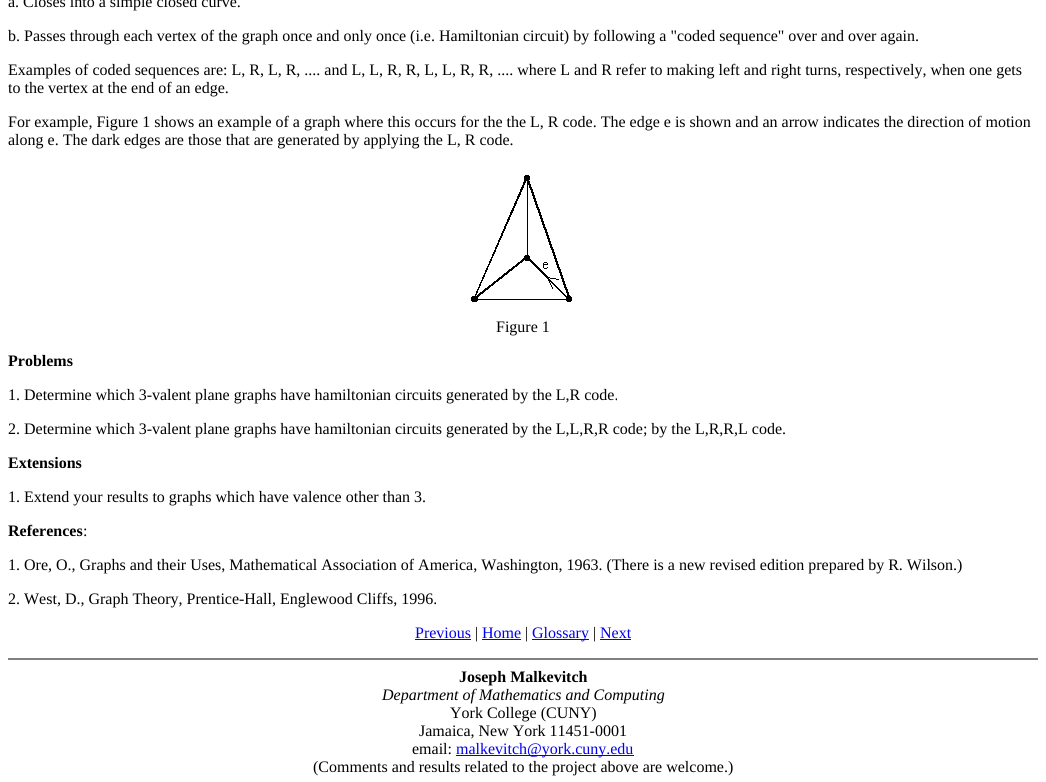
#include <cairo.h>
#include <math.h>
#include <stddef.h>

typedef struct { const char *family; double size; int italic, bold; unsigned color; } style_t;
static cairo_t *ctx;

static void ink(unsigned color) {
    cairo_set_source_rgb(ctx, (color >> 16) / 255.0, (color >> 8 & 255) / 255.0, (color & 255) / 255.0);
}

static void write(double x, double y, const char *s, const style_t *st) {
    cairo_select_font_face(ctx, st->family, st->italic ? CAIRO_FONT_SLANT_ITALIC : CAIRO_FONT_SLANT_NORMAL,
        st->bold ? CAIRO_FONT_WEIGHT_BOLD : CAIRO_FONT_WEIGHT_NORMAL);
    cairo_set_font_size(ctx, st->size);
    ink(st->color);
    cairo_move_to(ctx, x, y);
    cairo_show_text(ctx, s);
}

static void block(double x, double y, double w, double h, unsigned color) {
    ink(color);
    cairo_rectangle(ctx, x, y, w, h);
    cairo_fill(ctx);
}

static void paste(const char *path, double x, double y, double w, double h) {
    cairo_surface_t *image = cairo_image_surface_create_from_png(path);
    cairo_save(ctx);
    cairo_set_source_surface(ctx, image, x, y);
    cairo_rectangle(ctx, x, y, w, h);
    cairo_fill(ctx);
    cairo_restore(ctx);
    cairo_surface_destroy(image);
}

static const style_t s1 = {"Liberation Serif", 16, 0, 0, 0x000000};
static const style_t s2 = {"Liberation Serif", 16, 0, 1, 0x000000};
static const style_t s3 = {"Liberation Serif", 16, 0, 0, 0x0000ee};
static const style_t s4 = {"Liberation Serif", 16, 1, 0, 0x000000};

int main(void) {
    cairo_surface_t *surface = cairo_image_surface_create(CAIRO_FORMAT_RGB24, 1046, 782);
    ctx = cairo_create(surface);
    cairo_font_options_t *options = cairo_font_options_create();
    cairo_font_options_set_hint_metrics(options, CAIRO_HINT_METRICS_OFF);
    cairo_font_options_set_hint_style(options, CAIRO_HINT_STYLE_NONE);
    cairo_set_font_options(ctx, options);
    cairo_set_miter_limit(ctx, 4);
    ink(0xffffff);
    cairo_paint(ctx);
    write(8, 7, "a. Closes into a simple closed curve.", &s1);
    write(8, 41, "b. Passes through each vertex of the graph once and only once (i.e. Hamiltonian circuit) by following a \"coded sequence\" over and over again.", &s1);
    write(8, 75, "Examples of coded sequences are: L, R, L, R, .... and L, L, R, R, L, L, R, R, .... where L and R refer to making left and right turns, respectively, when one gets", &s1);
    write(8, 93, "to the vertex at the end of an edge.", &s1);
    write(8, 127, "For example, Figure 1 shows an example of a graph where this occurs for the the L, R code. The edge e is shown and an arrow indicates the direction of motion", &s1);
    write(8, 145, "along e. The dark edges are those that are generated by applying the L, R code.", &s1);
    paste("pic1.png", 471, 175, 101, 127);
    write(496, 332, "Figure 1", &s1);
    write(8, 366, "Problems", &s2);
    write(8, 400, "1. Determine which 3-valent plane graphs have hamiltonian circuits generated by the L,R code.", &s1);
    write(8, 434, "2. Determine which 3-valent plane graphs have hamiltonian circuits generated by the L,L,R,R code; by the L,R,R,L code.", &s1);
    write(8, 468, "Extensions", &s2);
    write(8, 502, "1. Extend your results to graphs which have valence other than 3.", &s1);
    write(8, 536, "References", &s2);
    write(83, 536, ":", &s1);
    write(8, 570, "1. Ore, O., Graphs and their Uses, Mathematical Association of America, Washington, 1963. (There is a new revised edition prepared by R. Wilson.)", &s1);
    write(8, 604, "2. West, D., Graph Theory, Prentice-Hall, Englewood Cliffs, 1996.", &s1);
    write(415, 638, "Previous", &s3);
    block(415, 639, 56, 1, 0x0000ee);
    write(475, 638, "|", &s1);
    write(482, 638, "Home", &s3);
    block(482, 639, 39, 1, 0x0000ee);
    write(525, 638, "|", &s1);
    block(532, 639, 57, 1, 0x0000ee);
    write(532, 638, "Glossary", &s3);
    write(593, 638, "|", &s1);
    write(600, 638, "Next", &s3);
    block(600, 639, 31, 1, 0x0000ee);
    block(8, 658, 1030, 2, 0x808080);
    write(459, 682, "Joseph Malkevitch", &s2);
    write(382, 700, "Department of Mathematics and Computing", &s4);
    write(450, 718, "York College (CUNY)", &s1);
    write(419, 736, "Jamaica, New York 11451-0001", &s1);
    write(412, 754, "email:", &s1);
    block(456, 755, 178, 1, 0x0000ee);
    write(456, 754, "malkevitch@york.cuny.edu", &s3);
    write(313, 772, "(Comments and results related to the project above are welcome.)", &s1);
    cairo_surface_write_to_png(surface, "screenshot.png");
    cairo_font_options_destroy(options);
    cairo_destroy(ctx);
    cairo_surface_destroy(surface);
    return 0;
}
